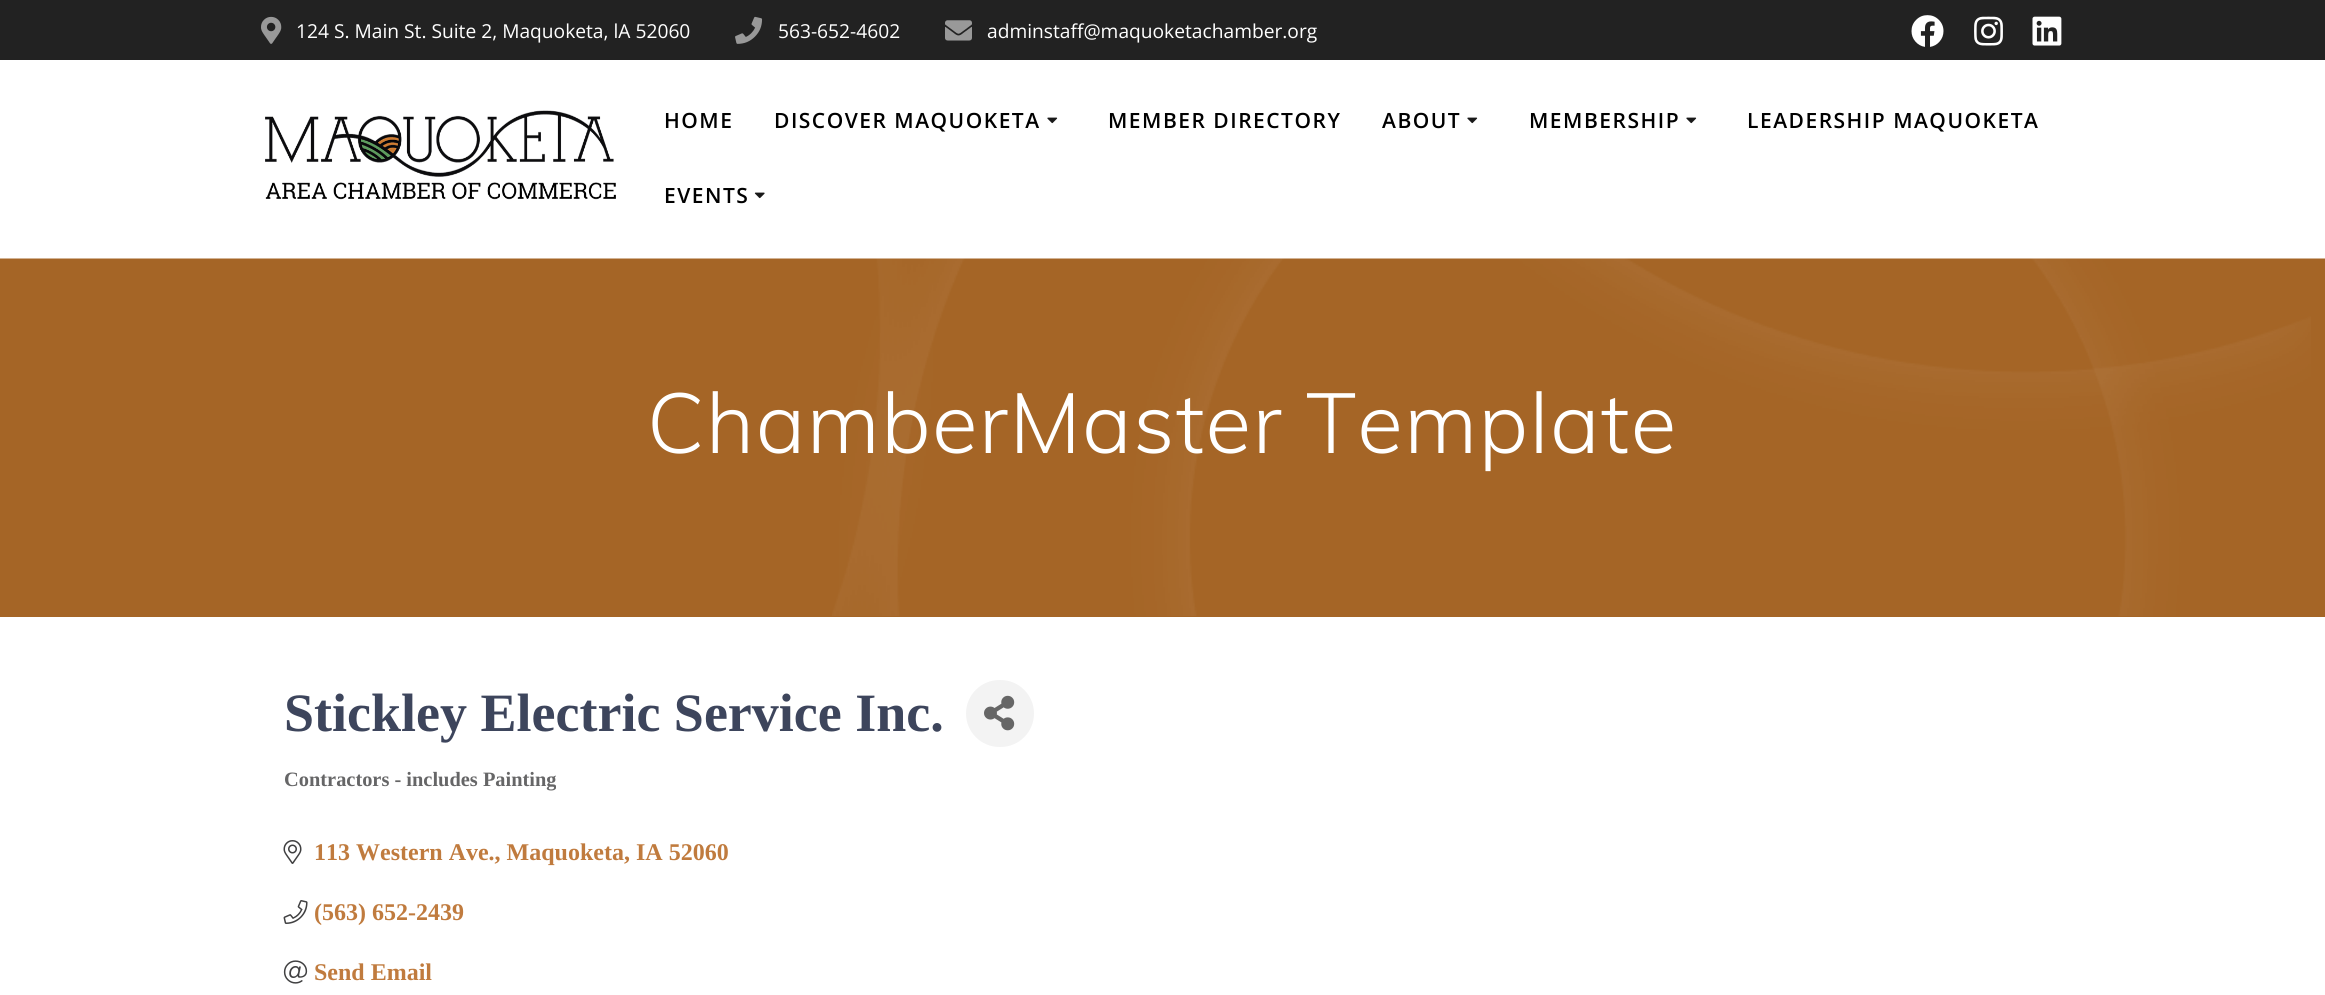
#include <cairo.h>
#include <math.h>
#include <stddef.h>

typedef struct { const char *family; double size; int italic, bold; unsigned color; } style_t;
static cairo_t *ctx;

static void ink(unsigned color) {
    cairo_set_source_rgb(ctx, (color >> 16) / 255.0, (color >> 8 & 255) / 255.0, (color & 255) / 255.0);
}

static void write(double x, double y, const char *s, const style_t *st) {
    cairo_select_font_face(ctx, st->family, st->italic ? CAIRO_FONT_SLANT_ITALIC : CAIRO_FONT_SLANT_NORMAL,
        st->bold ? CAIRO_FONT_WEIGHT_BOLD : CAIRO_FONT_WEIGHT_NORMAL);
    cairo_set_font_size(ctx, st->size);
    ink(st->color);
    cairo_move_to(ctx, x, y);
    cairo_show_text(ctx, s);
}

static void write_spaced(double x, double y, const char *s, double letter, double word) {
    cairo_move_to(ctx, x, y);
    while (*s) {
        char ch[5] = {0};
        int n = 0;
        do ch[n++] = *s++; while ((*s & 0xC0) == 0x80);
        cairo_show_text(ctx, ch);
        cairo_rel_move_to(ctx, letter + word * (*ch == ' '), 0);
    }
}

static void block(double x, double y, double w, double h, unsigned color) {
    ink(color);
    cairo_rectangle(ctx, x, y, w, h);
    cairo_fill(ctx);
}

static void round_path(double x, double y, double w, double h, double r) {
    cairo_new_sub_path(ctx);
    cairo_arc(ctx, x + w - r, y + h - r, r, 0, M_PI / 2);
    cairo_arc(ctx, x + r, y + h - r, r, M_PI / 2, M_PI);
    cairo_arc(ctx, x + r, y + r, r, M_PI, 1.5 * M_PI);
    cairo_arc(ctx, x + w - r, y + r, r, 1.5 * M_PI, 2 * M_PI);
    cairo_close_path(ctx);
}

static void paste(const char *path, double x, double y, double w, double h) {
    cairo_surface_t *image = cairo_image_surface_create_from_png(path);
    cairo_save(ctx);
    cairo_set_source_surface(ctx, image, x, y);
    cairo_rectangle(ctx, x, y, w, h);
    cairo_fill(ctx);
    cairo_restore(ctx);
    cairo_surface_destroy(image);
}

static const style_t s1 = {"Open Sans", 19.2, 0, 0, 0xffffff};
static const style_t s2 = {"Liberation Serif", 54, 0, 1, 0x3d455c};
static const style_t s3 = {"Liberation Serif", 20.4, 0, 1, 0x666667};
static const style_t s4 = {"Liberation Serif", 24, 0, 1, 0xc07b3e};

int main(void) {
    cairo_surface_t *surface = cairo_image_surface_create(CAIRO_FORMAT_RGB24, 2325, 995);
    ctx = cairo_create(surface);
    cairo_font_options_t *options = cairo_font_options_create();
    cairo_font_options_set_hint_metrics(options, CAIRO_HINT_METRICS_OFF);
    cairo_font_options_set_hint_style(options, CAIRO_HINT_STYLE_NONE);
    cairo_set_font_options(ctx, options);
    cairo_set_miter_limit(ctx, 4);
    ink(0xa56526);
    cairo_paint(ctx);
    block(0, 0, 2325, 60, 0x222222);
    paste("pic1.png", 261, 16, 21, 28);
    write(296, 38, "124 S. Main St. Suite 2, Maquoketa, lA 52060", &s1);
    paste("pic2.png", 735, 16, 28, 28);
    write(778, 38, "563-652-4602", &s1);
    paste("pic3.png", 945, 20, 27, 21);
    write(987, 38, "adminstaff@maquoketachamber.org", &s1);
    paste("pic4.png", 1911, 15, 33, 32);
    paste("pic5.png", 1974, 16, 29, 30);
    paste("pic6.png", 2032, 16, 30, 30);
    block(0, 60, 2325, 198, 0xffffff);
    paste("pic10.png", 832, 258, 1479, 358);
    cairo_set_source_rgba(ctx, 1, 1, 1, 0.5);
    cairo_rectangle(ctx, 0, 258, 2325, 1);
    cairo_fill(ctx);
    paste("pic7.png", 265, 110, 351, 90);
    cairo_select_font_face(ctx, "Open Sans SemiBold", CAIRO_FONT_SLANT_NORMAL, CAIRO_FONT_WEIGHT_NORMAL);
    cairo_set_font_size(ctx, 21);
    ink(0x000000);
    write_spaced(664, 128, "HOME", 1.5, 0);
    write_spaced(774, 128, "DISCOVER MAQUOKETA", 1.5, 0);
    paste("pic8.png", 1047, 117, 11, 7);
    write_spaced(1108, 128, "MEMBER DIRECTORY", 1.5, 0);
    write_spaced(1382, 128, "ABOUT", 1.5, 0);
    paste("pic8.png", 1467, 117, 11, 7);
    write_spaced(1529, 128, "MEMBERSHIP", 1.5, 0);
    paste("pic8.png", 1686, 117, 11, 7);
    write_spaced(1747, 128, "LEADERSHIP MAQUOKETA", 1.5, 0);
    write_spaced(664, 203, "EVENTS", 1.5, 0);
    paste("pic9.png", 754, 192, 11, 7);
    cairo_select_font_face(ctx, "Muli Light", CAIRO_FONT_SLANT_NORMAL, CAIRO_FONT_WEIGHT_NORMAL);
    cairo_set_font_size(ctx, 84);
    ink(0xffffff);
    write_spaced(647, 453, "ChamberMaster Template", 1.35, 0);
    block(0, 617, 2325, 378, 0xffffff);
    write(284, 731, "Stickley Electric Service Inc.", &s2);
    ink(0xf3f3f3);
    round_path(966, 680, 68, 67, 33.5);
    cairo_fill(ctx);
    paste("pic11.png", 984, 695, 31, 36);
    write(284, 786, "Contractors - includes Painting", &s3);
    paste("pic12.png", 283, 840, 19, 24);
    write(314, 860, "113 Western Ave., Maquoketa, IA 52060", &s4);
    paste("pic13.png", 283, 900, 25, 24);
    write(314, 920, "(563) 652-2439", &s4);
    paste("pic14.png", 283, 960, 25, 24);
    write(314, 980, "Send Email", &s4);
    cairo_surface_write_to_png(surface, "screenshot.png");
    cairo_font_options_destroy(options);
    cairo_destroy(ctx);
    cairo_surface_destroy(surface);
    return 0;
}
